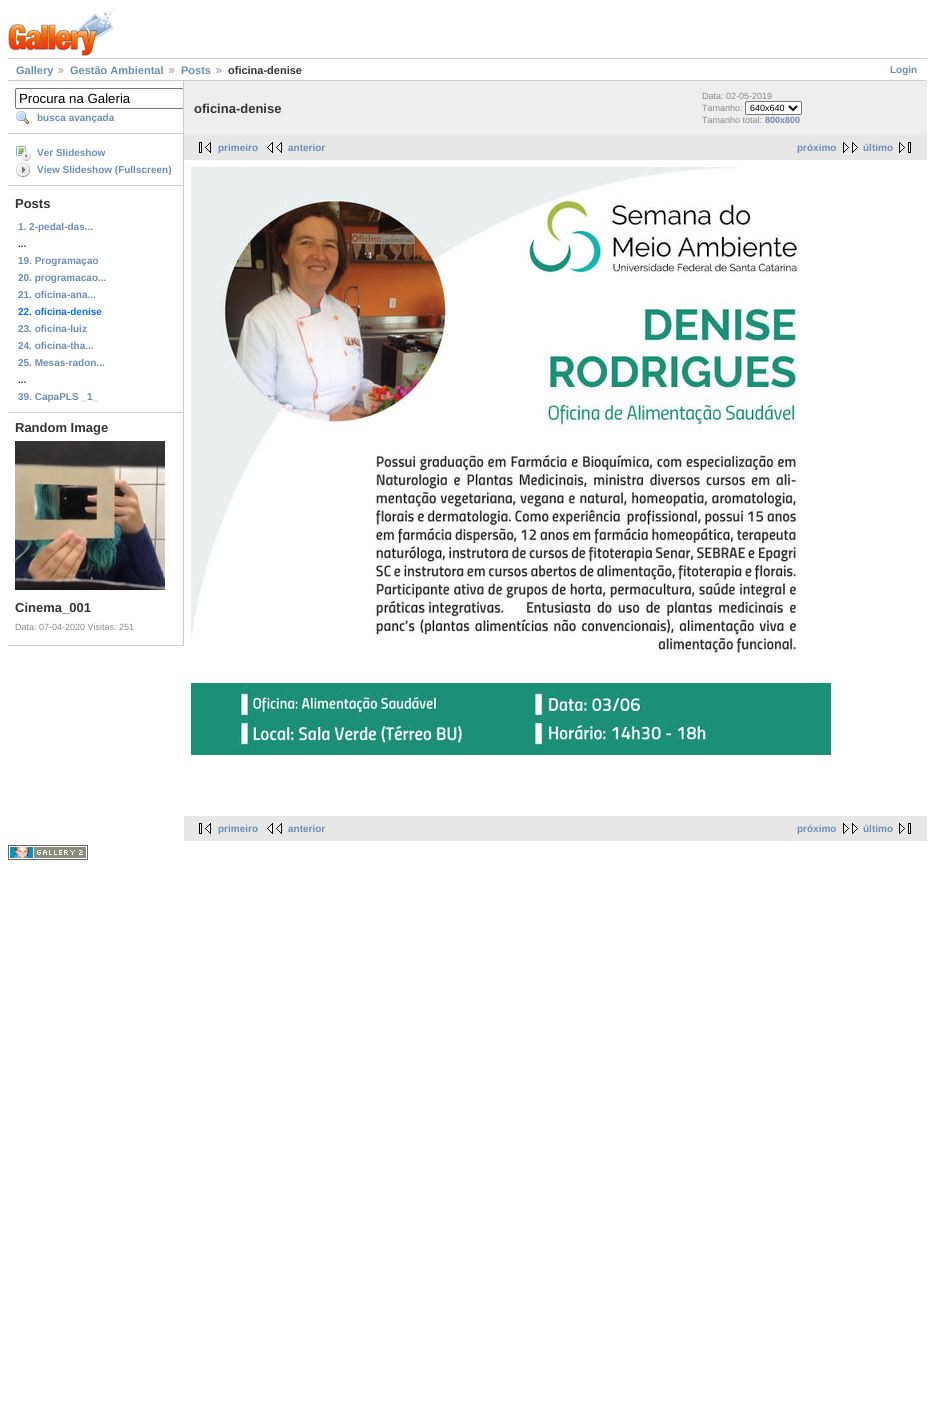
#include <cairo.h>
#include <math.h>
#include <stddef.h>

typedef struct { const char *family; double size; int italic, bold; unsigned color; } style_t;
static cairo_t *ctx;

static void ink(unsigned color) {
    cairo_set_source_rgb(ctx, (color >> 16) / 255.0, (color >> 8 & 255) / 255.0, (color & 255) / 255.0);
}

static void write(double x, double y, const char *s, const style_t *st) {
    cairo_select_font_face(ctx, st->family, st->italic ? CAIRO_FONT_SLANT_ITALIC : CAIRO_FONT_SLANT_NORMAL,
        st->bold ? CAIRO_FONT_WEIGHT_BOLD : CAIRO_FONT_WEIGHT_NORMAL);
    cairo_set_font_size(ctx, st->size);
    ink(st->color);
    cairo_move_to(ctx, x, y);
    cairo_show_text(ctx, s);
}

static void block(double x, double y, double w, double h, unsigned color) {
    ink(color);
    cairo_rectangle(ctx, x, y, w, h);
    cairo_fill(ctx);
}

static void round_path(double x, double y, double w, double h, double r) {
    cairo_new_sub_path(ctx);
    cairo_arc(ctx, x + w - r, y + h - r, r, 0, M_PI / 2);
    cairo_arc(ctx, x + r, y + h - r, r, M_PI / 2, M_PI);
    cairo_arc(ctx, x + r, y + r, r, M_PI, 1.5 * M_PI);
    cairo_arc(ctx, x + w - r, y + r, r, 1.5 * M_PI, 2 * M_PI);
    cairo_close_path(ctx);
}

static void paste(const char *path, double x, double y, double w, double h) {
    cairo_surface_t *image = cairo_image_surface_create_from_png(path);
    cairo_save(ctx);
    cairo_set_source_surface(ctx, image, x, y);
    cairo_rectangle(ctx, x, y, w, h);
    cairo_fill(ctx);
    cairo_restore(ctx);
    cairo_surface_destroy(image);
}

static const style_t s1 = {"Liberation Sans", 11, 0, 1, 0x6b8cb7};
static const style_t s2 = {"Liberation Sans", 11, 0, 1, 0x333333};
static const style_t s3 = {"Liberation Sans", 10, 0, 1, 0x6b8cb7};
static const style_t s4 = {"Liberation Sans", 13.25, 0, 0, 0x000000};
static const style_t s5 = {"Liberation Sans", 13, 0, 1, 0x333333};
static const style_t s6 = {"Liberation Sans", 10, 0, 1, 0x333333};
static const style_t s7 = {"Liberation Sans", 10, 0, 1, 0x0b6cff};
static const style_t s8 = {"Liberation Sans", 9, 0, 0, 0x888888};
static const style_t s9 = {"Liberation Sans", 9, 0, 0, 0x000000};
static const style_t s10 = {"Liberation Sans", 9, 0, 1, 0x6b8cb7};

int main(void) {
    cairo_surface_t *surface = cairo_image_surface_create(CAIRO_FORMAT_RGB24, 935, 1413);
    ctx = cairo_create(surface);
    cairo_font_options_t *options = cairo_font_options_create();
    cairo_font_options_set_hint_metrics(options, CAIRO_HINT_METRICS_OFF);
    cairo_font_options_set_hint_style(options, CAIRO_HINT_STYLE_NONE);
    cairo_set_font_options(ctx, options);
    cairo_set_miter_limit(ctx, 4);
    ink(0xffffff);
    cairo_paint(ctx);
    paste("pic1.png", 8, 8, 107, 48);
    block(8, 58, 919, 1, 0xcccccc);
    block(8, 80, 919, 1, 0xcccccc);
    write(16, 74, "Gallery", &s1);
    paste("pic2.png", 58, 68, 6, 5);
    write(70, 74, "Gestão Ambiental", &s1);
    paste("pic2.png", 169, 68, 6, 5);
    write(181, 74, "Posts", &s1);
    paste("pic2.png", 216, 68, 6, 5);
    write(228, 74, "oficina-denise", &s2);
    write(890, 73, "Login", &s3);
    block(183, 81, 1, 565, 0xcccccc);
    block(8, 133, 175, 1, 0xcccccc);
    cairo_save(ctx);
    cairo_rectangle(ctx, 8, 81, 175, 565);
    cairo_clip(ctx);
    round_path(15.5, 88.5, 168, 20, 1.5);
    ink(0x767676);
    cairo_set_line_width(ctx, 1);
    cairo_stroke(ctx);
    cairo_restore(ctx);
    write(19, 103, "Procura na Galeria", &s4);
    paste("pic3.png", 16, 111, 13, 14);
    write(37, 121, "busca avançada", &s3);
    block(8, 185, 175, 1, 0xcccccc);
    paste("pic4.png", 16, 146, 15, 15);
    write(37, 156, "Ver Slideshow", &s3);
    paste("pic5.png", 16, 163, 14, 14);
    write(37, 173, "View Slideshow (Fullscreen)", &s3);
    block(8, 412, 175, 1, 0xcccccc);
    write(15, 208, "Posts", &s5);
    write(18, 230, "1. 2-pedal-das...", &s3);
    write(18, 247, "...", &s6);
    write(18, 264, "19. Programaçao", &s3);
    write(18, 281, "20. programacao...", &s3);
    write(18, 298, "21. oficina-ana...", &s3);
    write(18, 315, "22. oficina-denise", &s7);
    write(18, 332, "23. oficina-luiz", &s3);
    write(18, 349, "24. oficina-tha...", &s3);
    write(18, 366, "25. Mesas-radon...", &s3);
    write(18, 383, "...", &s6);
    write(18, 400, "39. CapaPLS _1_", &s3);
    block(8, 645, 175, 1, 0xcccccc);
    write(15, 432, "Random Image", &s5);
    paste("pic6.png", 15, 441, 150, 149);
    write(15, 612, "Cinema_001", &s5);
    write(15, 630, "Data: 07-04-2020 Visitas: 251", &s8);
    block(184, 81, 743, 54, 0xeeeeee);
    write(194, 113, "oficina-denise", &s5);
    write(702, 99, "Data: 02-05-2019", &s8);
    write(702, 111, "Tamanho:", &s8);
    ink(0xffffff);
    round_path(745.5, 101.5, 56, 13, 1.5);
    cairo_fill_preserve(ctx);
    ink(0x767676);
    cairo_set_line_width(ctx, 1);
    cairo_stroke(ctx);
    cairo_new_path(ctx);
    cairo_move_to(ctx, 789, 106);
    cairo_line_to(ctx, 793, 110);
    cairo_line_to(ctx, 797, 106);
    ink(0x000000);
    cairo_set_line_width(ctx, 2);
    cairo_stroke(ctx);
    write(750, 111, "640x640", &s9);
    write(702, 123, "Tamanho total:", &s8);
    write(765, 123, "800x800", &s10);
    block(184, 135, 743, 25, 0xe7e7e7);
    paste("pic7.png", 199, 142, 12, 11);
    write(218, 151, "primeiro", &s3);
    paste("pic8.png", 267, 142, 15, 11);
    write(288, 151, "anterior", &s3);
    write(797, 151, "próximo", &s3);
    paste("pic9.png", 843, 142, 15, 11);
    write(863, 151, "último", &s3);
    paste("pic10.png", 899, 142, 12, 11);
    paste("pic11.png", 191, 167, 640, 588);
    block(184, 816, 743, 25, 0xe7e7e7);
    paste("pic7.png", 199, 823, 12, 11);
    write(218, 832, "primeiro", &s3);
    paste("pic8.png", 267, 823, 15, 11);
    write(288, 832, "anterior", &s3);
    write(797, 832, "próximo", &s3);
    paste("pic9.png", 843, 823, 15, 11);
    write(863, 832, "último", &s3);
    paste("pic10.png", 899, 823, 12, 11);
    paste("pic12.png", 8, 845, 80, 15);
    cairo_surface_write_to_png(surface, "screenshot.png");
    cairo_font_options_destroy(options);
    cairo_destroy(ctx);
    cairo_surface_destroy(surface);
    return 0;
}
